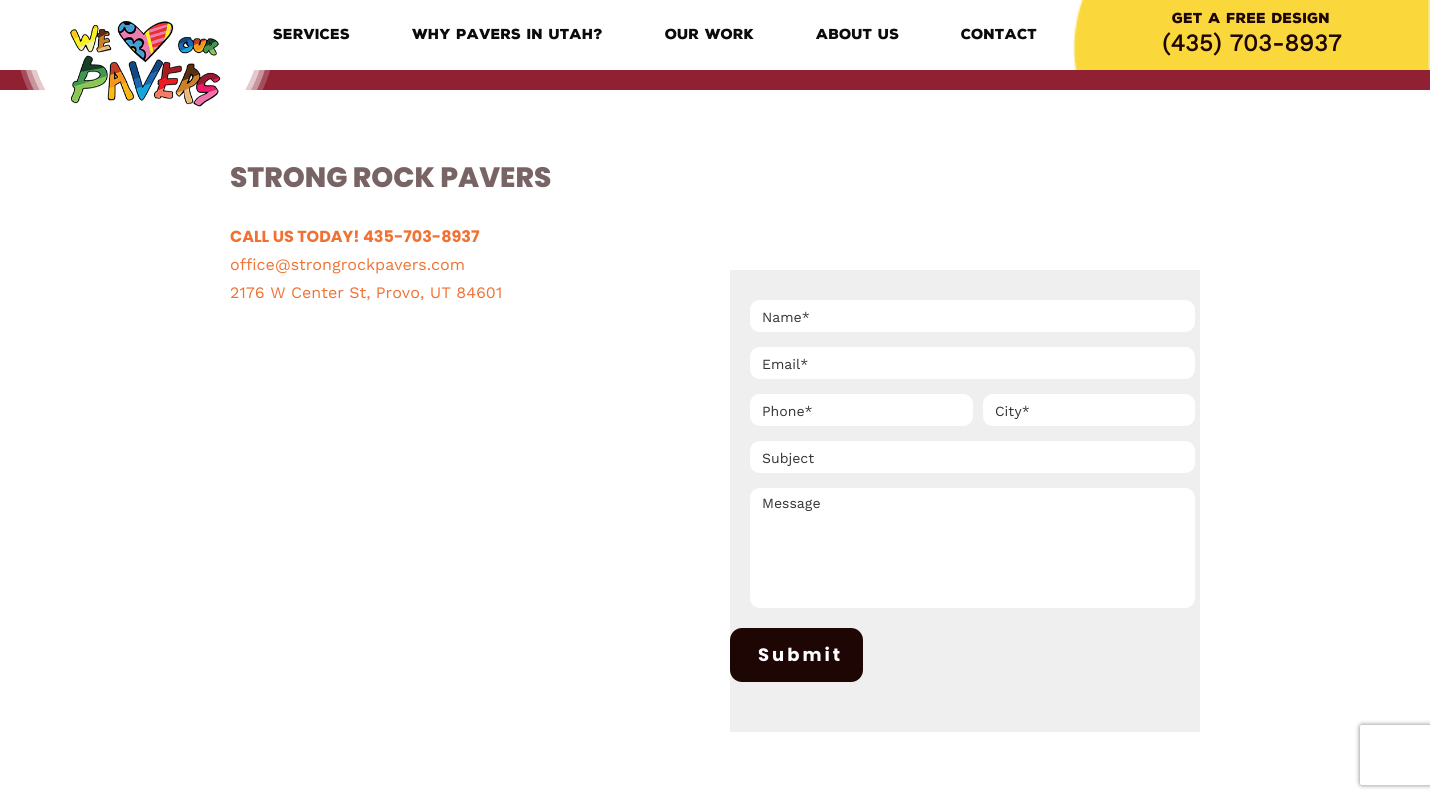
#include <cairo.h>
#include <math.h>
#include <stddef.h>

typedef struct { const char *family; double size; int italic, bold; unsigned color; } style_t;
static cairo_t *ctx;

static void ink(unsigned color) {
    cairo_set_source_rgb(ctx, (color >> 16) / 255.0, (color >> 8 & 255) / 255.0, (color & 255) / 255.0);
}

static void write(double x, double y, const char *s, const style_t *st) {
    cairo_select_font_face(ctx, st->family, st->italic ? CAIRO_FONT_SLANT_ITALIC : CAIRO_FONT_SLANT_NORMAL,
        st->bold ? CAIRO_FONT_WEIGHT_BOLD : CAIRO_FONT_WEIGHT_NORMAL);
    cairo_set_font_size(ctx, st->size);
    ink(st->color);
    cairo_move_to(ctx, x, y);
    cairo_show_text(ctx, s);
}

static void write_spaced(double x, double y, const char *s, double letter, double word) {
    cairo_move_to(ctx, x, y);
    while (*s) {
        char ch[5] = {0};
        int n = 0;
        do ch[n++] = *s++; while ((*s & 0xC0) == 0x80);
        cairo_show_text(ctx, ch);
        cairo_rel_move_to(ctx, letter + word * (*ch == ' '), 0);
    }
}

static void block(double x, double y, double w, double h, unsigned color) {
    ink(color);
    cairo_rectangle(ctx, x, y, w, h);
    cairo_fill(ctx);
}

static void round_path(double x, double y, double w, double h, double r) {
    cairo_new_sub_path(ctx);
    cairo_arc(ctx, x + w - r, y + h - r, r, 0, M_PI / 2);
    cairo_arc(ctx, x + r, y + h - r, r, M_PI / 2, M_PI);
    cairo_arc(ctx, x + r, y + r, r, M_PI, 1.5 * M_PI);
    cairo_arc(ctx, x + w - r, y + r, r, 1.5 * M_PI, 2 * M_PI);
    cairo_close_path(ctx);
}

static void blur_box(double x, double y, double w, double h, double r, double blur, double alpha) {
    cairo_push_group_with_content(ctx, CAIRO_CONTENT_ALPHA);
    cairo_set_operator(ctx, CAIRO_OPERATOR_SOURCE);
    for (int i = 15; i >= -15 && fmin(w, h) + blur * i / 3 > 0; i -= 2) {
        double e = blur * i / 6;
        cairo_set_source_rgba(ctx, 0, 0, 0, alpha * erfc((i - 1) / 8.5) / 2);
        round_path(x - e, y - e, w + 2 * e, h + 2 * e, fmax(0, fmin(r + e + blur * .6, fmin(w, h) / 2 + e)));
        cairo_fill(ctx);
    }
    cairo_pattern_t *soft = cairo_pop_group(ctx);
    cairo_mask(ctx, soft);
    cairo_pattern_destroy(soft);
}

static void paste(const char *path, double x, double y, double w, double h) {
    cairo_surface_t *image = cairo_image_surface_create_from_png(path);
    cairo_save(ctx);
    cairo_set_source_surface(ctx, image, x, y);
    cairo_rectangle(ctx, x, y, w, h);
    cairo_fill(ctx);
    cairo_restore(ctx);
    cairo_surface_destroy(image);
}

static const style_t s1 = {"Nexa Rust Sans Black", 14, 0, 0, 0x0b0b0c};
static const style_t s2 = {"Nexa Rust Sans Black", 14, 0, 0, 0x1d0603};
static const style_t s3 = {"Work Sans", 24, 0, 1, 0x1d0603};
static const style_t s4 = {"Poppins ExtraBold", 28, 0, 0, 0x786365};
static const style_t s5 = {"Poppins", 16, 0, 1, 0xf07132};
static const style_t s6 = {"Work Sans", 16, 0, 0, 0xf07132};
static const style_t s7 = {"Work Sans", 14, 0, 0, 0x333333};

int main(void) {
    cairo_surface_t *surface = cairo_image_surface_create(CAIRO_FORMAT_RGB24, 1430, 799);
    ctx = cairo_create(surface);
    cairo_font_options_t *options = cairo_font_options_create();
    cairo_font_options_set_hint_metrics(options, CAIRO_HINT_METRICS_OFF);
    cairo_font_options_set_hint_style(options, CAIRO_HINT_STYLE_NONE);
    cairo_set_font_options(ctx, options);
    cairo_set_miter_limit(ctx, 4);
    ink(0x8f2133);
    cairo_paint(ctx);
    block(0, 0, 1430, 70, 0xffffff);
    block(0, 90, 1430, 709, 0xffffff);
    paste("pic1.png", 20, 21, 250, 86);
    write(273, 39, "SERVICES", &s1);
    write(412, 39, "WHY PAVERS IN UTAH?", &s1);
    write(665, 39, "OUR WORK", &s1);
    write(816, 39, "ABOUT US", &s1);
    write(961, 39, "CONTACT", &s1);
    paste("pic2.png", 1073, 0, 357, 70);
    write(1172, 23, "GET A FREE DESIGN", &s2);
    write(1162, 51, "(435) 703-8937", &s3);
    write(230, 187, "STRONG ROCK PAVERS", &s4);
    write(230, 242, "CALL US TODAY! 435-703-8937", &s5);
    write(230, 270, "office@strongrockpavers.com", &s6);
    write(230, 298, "2176 W Center St, Provo, UT 84601", &s6);
    block(730, 270, 470, 462, 0xefefef);
    ink(0xffffff);
    round_path(750, 300, 445, 32, 10);
    cairo_fill(ctx);
    write(762, 322, "Name*", &s7);
    ink(0xffffff);
    round_path(750, 347, 445, 32, 10);
    cairo_fill(ctx);
    write(762, 369, "Email*", &s7);
    ink(0xffffff);
    round_path(750, 394, 223, 32, 10);
    cairo_fill(ctx);
    write(762, 416, "Phone*", &s7);
    ink(0xffffff);
    round_path(983, 394, 212, 32, 10);
    cairo_fill(ctx);
    write(995, 416, "City*", &s7);
    ink(0xffffff);
    round_path(750, 441, 445, 32, 10);
    cairo_fill(ctx);
    write(762, 463, "Subject", &s7);
    ink(0xffffff);
    round_path(750, 488, 445, 120, 10);
    cairo_fill(ctx);
    write(762, 508, "Message", &s7);
    cairo_save(ctx);
    cairo_set_fill_rule(ctx, CAIRO_FILL_RULE_EVEN_ODD);
    cairo_new_path(ctx);
    cairo_move_to(ctx, 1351, 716);
    cairo_line_to(ctx, 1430, 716);
    cairo_line_to(ctx, 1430, 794);
    cairo_line_to(ctx, 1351, 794);
    cairo_close_path(ctx);
    cairo_move_to(ctx, 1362, 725);
    cairo_line_to(ctx, 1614, 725);
    cairo_curve_to(ctx, 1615, 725, 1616, 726, 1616, 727);
    cairo_line_to(ctx, 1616, 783);
    cairo_curve_to(ctx, 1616, 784, 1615, 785, 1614, 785);
    cairo_line_to(ctx, 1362, 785);
    cairo_curve_to(ctx, 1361, 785, 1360, 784, 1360, 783);
    cairo_line_to(ctx, 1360, 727);
    cairo_curve_to(ctx, 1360, 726, 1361, 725, 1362, 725);
    cairo_close_path(ctx);
    cairo_clip(ctx);
    ink(0x808080);
    blur_box(1360, 725, 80, 60, 2, 2.5, 1);
    cairo_restore(ctx);
    ink(0x1d0603);
    round_path(730, 628, 133, 54, 12);
    cairo_fill(ctx);
    cairo_select_font_face(ctx, "Poppins", CAIRO_FONT_SLANT_NORMAL, CAIRO_FONT_WEIGHT_BOLD);
    cairo_set_font_size(ctx, 18);
    ink(0xffffff);
    write_spaced(758, 661, "Submit", 3, 0);
    cairo_surface_write_to_png(surface, "screenshot.png");
    cairo_font_options_destroy(options);
    cairo_destroy(ctx);
    cairo_surface_destroy(surface);
    return 0;
}
